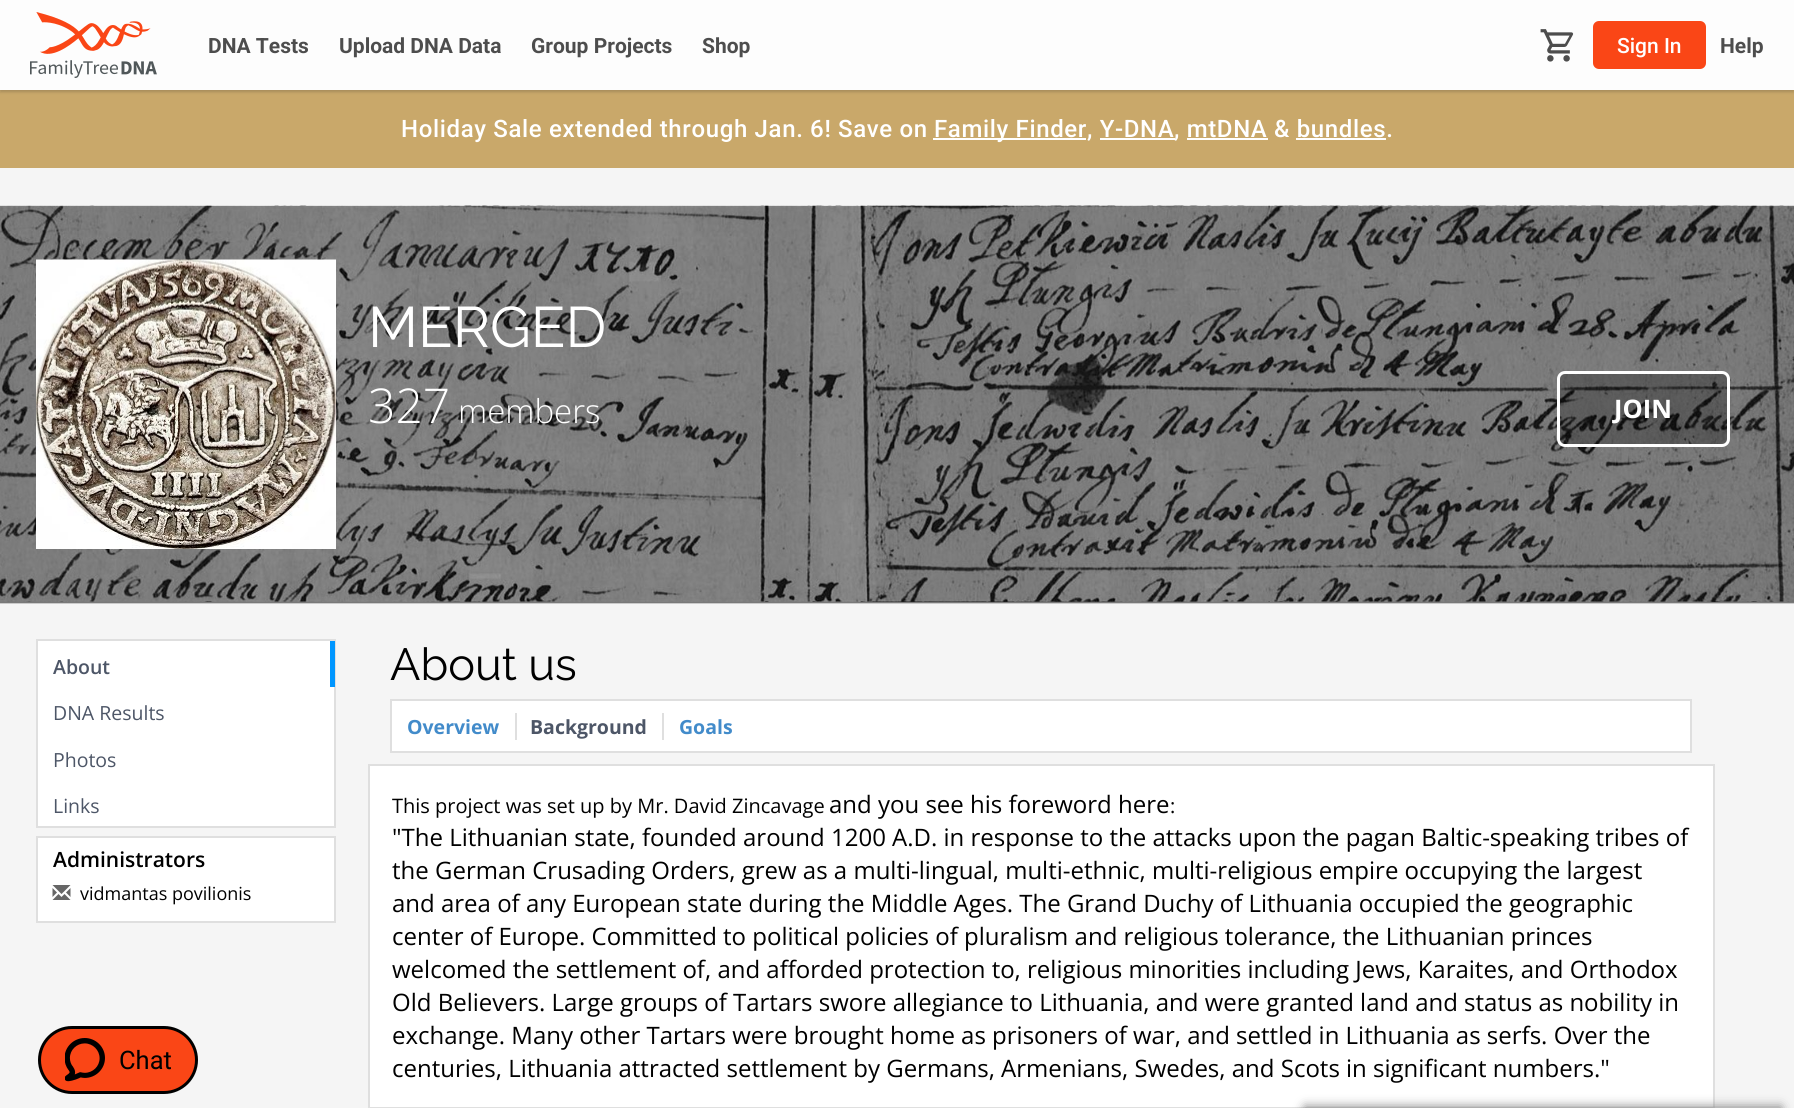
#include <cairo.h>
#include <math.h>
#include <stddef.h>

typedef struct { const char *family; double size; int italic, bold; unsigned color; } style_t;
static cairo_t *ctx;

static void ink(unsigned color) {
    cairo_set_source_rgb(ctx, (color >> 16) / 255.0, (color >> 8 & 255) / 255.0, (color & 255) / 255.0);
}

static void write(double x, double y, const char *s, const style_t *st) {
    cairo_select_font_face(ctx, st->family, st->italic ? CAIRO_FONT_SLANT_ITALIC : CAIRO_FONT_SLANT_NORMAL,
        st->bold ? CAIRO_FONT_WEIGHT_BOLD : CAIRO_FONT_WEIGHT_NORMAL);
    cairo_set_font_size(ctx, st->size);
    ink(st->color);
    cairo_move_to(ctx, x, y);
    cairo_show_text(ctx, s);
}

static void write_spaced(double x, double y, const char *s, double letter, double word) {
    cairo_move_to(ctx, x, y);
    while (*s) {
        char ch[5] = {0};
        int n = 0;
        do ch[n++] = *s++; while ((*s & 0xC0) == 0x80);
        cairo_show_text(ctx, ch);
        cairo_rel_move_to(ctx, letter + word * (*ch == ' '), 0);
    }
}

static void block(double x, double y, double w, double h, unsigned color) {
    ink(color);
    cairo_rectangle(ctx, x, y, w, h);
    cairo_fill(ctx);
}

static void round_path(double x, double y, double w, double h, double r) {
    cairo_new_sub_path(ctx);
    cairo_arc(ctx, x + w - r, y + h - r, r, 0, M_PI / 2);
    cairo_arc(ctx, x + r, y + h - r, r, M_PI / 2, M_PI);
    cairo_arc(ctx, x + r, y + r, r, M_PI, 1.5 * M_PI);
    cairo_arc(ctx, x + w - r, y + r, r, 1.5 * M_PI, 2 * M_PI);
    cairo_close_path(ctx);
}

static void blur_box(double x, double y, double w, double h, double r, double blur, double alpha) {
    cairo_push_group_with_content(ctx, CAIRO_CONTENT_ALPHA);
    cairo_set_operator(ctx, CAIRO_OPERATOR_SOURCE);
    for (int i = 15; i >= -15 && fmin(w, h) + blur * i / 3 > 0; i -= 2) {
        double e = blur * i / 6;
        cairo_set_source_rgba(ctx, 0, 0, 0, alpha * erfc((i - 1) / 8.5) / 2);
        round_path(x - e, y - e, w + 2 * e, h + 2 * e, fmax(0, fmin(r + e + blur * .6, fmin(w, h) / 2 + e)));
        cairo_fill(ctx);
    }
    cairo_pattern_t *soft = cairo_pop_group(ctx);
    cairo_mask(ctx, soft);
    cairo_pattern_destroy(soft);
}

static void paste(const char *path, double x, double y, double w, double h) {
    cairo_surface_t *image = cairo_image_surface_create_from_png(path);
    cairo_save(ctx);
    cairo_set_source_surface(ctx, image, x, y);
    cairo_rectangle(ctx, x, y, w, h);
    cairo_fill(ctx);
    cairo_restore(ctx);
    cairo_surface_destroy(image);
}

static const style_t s1 = {"Roboto", 21, 0, 1, 0x4d4d4d};
static const style_t s2 = {"Roboto Medium", 21, 0, 0, 0xffffff};
static const style_t s3 = {"Raleway", 57, 0, 0, 0xffffff};
static const style_t s4 = {"Open Sans Light", 48, 0, 0, 0xffffff};
static const style_t s5 = {"Open Sans Light", 33, 0, 0, 0xffffff};
static const style_t s6 = {"Open Sans", 25.5, 0, 1, 0xffffff};
static const style_t s7 = {"Open Sans SemiBold", 19.5, 0, 0, 0x4d5667};
static const style_t s8 = {"Open Sans", 19.5, 0, 0, 0x4d5667};
static const style_t s9 = {"Open Sans SemiBold", 21, 0, 0, 0x000000};
static const style_t s10 = {"Open Sans", 18, 0, 0, 0x000000};
static const style_t s11 = {"Raleway", 45, 0, 0, 0x000000};
static const style_t s12 = {"Open Sans", 19.5, 0, 1, 0x428bca};
static const style_t s13 = {"Open Sans", 19.5, 0, 1, 0x4d5667};
static const style_t s14 = {"Open Sans", 20, 0, 0, 0x000000};
static const style_t s15 = {"Open Sans", 24, 0, 0, 0x000000};
static const style_t s16 = {"Roboto", 25.5, 0, 0, 0x000000};

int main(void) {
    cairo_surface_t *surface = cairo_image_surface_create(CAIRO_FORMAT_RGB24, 1794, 1108);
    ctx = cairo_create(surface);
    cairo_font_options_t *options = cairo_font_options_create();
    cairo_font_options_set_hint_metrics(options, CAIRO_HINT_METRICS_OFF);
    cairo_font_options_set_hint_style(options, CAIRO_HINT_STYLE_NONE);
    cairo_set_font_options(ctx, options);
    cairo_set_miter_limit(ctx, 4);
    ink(0xf5f5f5);
    cairo_paint(ctx);
    block(0, 90, 1794, 78, 0xc9a86a);
    ink(0x212121);
    blur_box(0, 2, 1794, 90, 0, 1.5, 0.21);
    block(0, 0, 1794, 90, 0xfdfdfd);
    paste("pic1.png", 30, 12, 127, 66);
    write(208, 53, "DNA Tests", &s1);
    write(339, 53, "Upload DNA Data", &s1);
    write(531, 53, "Group Projects", &s1);
    write(702, 53, "Shop", &s1);
    paste("pic2.png", 1540, 29, 34, 33);
    ink(0xfa4616);
    round_path(1593, 21, 113, 48, 6);
    cairo_fill(ctx);
    write(1617, 53, "Sign In", &s2);
    write(1720, 53, "Help", &s1);
    cairo_select_font_face(ctx, "Roboto Medium", CAIRO_FONT_SLANT_NORMAL, CAIRO_FONT_WEIGHT_NORMAL);
    cairo_set_font_size(ctx, 24);
    ink(0xffffff);
    write_spaced(401, 137, "Holiday Sale extended through Jan. 6! Save on", 0.65, 0);
    block(933, 138, 153, 2, 0xffffff);
    write_spaced(934, 137, "Family Finder, Y-DNA", 0.65, 0);
    block(1100, 138, 75, 2, 0xffffff);
    write_spaced(1174, 137, ", mtDNA & bundles.", 0.65, 0);
    block(1187, 138, 81, 2, 0xffffff);
    block(1296, 138, 90, 2, 0xffffff);
    paste("pic3.png", 0, 205, 1794, 397);
    block(0, 603, 1794, 1, 0xcacaca);
    block(0, 602, 1794, 1, 0x797979);
    paste("pic4.png", 36, 259, 300, 290);
    write(368, 347, "MERGED", &s3);
    write(368, 423, "327", &s4);
    write(458, 423, "members", &s5);
    cairo_set_source_rgba(ctx, 0, 0, 0, 0.25);
    round_path(1558.5, 372.5, 170, 73, 6.5);
    cairo_fill_preserve(ctx);
    ink(0xffffff);
    cairo_set_line_width(ctx, 3);
    cairo_stroke(ctx);
    write(1614, 418, "JOIN", &s6);
    cairo_rectangle(ctx, 37, 640, 298, 187);
    cairo_fill_preserve(ctx);
    ink(0xdfdfdf);
    cairo_set_line_width(ctx, 2);
    cairo_stroke(ctx);
    block(330, 641, 5, 46, 0x0096ff);
    write(53, 674, "About", &s7);
    write(53, 720, "DNA Results", &s8);
    write(53, 767, "Photos", &s8);
    write(53, 813, "Links", &s8);
    ink(0xffffff);
    cairo_rectangle(ctx, 37, 837, 298, 85);
    cairo_fill_preserve(ctx);
    ink(0xdfdfdf);
    cairo_stroke(ctx);
    write(53, 867, "Administrators", &s9);
    paste("pic5.png", 52, 885, 19, 15);
    write(80, 900, "vidmantas povilionis", &s10);
    write(390, 680, "About us", &s11);
    ink(0xffffff);
    cairo_rectangle(ctx, 391, 700, 1300, 52);
    cairo_fill_preserve(ctx);
    ink(0xdfdfdf);
    cairo_stroke(ctx);
    write(407, 734, "Overview", &s12);
    block(515, 713, 2, 27, 0xdfdfdf);
    write(530, 734, "Background", &s13);
    block(662, 713, 2, 27, 0xdfdfdf);
    write(679, 734, "Goals", &s12);
    ink(0xffffff);
    cairo_rectangle(ctx, 369, 765, 1345, 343);
    cairo_fill_preserve(ctx);
    ink(0xdfdfdf);
    cairo_stroke(ctx);
    write(392, 813, "This project was set up by Mr. David Zincavage", &s14);
    write(829, 813, "and you see his foreword here", &s15);
    write(1170, 813, ":", &s14);
    write(392, 846, "\"The Lithuanian state, founded around 1200 A.D. in response to the attacks upon the pagan Baltic-speaking tribes of", &s15);
    write(392, 879, "the German Crusading Orders, grew as a multi-lingual, multi-ethnic, multi-religious empire occupying the largest", &s15);
    write(392, 912, "and area of any European state during the Middle Ages. The Grand Duchy of Lithuania occupied the geographic", &s15);
    write(392, 945, "center of Europe. Committed to political policies of pluralism and religious tolerance, the Lithuanian princes", &s15);
    write(392, 978, "welcomed the settlement of, and afforded protection to, religious minorities including Jews, Karaites, and Orthodox", &s15);
    write(392, 1011, "Old Believers. Large groups of Tartars swore allegiance to Lithuania, and were granted land and status as nobility in", &s15);
    write(392, 1044, "exchange. Many other Tartars were brought home as prisoners of war, and settled in Lithuania as serfs. Over the", &s15);
    write(392, 1077, "centuries, Lithuania attracted settlement by Germans, Armenians, Swedes, and Scots in significant numbers.\"", &s15);
    ink(0xfa4616);
    round_path(39.5, 1027.5, 157, 65, 32.5);
    cairo_fill_preserve(ctx);
    ink(0x000000);
    cairo_set_line_width(ctx, 3);
    cairo_stroke(ctx);
    paste("pic6.png", 65, 1038, 40, 44);
    write(119, 1069, "Chat", &s16);
    ink(0x808080);
    blur_box(1305, 1107, 476, 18, 0, 5.5, 1);
    cairo_surface_write_to_png(surface, "screenshot.png");
    cairo_font_options_destroy(options);
    cairo_destroy(ctx);
    cairo_surface_destroy(surface);
    return 0;
}
